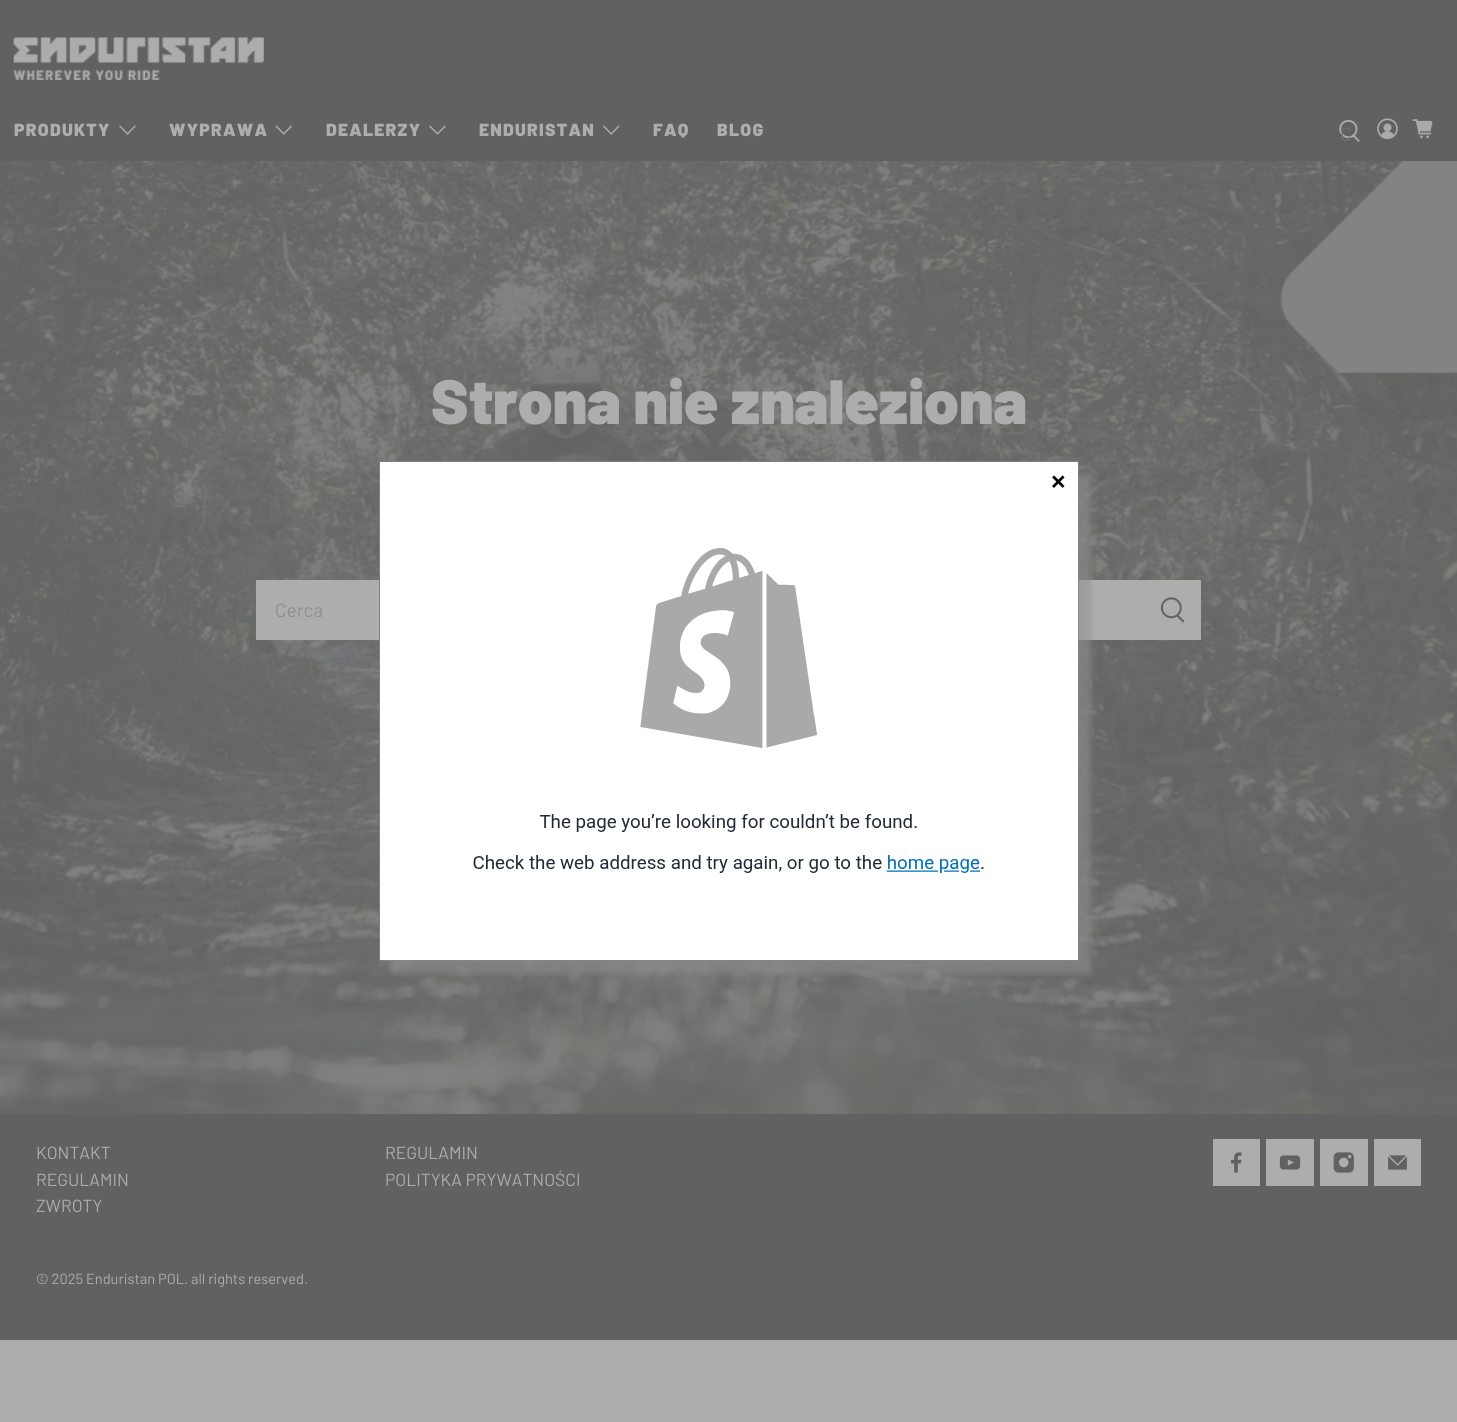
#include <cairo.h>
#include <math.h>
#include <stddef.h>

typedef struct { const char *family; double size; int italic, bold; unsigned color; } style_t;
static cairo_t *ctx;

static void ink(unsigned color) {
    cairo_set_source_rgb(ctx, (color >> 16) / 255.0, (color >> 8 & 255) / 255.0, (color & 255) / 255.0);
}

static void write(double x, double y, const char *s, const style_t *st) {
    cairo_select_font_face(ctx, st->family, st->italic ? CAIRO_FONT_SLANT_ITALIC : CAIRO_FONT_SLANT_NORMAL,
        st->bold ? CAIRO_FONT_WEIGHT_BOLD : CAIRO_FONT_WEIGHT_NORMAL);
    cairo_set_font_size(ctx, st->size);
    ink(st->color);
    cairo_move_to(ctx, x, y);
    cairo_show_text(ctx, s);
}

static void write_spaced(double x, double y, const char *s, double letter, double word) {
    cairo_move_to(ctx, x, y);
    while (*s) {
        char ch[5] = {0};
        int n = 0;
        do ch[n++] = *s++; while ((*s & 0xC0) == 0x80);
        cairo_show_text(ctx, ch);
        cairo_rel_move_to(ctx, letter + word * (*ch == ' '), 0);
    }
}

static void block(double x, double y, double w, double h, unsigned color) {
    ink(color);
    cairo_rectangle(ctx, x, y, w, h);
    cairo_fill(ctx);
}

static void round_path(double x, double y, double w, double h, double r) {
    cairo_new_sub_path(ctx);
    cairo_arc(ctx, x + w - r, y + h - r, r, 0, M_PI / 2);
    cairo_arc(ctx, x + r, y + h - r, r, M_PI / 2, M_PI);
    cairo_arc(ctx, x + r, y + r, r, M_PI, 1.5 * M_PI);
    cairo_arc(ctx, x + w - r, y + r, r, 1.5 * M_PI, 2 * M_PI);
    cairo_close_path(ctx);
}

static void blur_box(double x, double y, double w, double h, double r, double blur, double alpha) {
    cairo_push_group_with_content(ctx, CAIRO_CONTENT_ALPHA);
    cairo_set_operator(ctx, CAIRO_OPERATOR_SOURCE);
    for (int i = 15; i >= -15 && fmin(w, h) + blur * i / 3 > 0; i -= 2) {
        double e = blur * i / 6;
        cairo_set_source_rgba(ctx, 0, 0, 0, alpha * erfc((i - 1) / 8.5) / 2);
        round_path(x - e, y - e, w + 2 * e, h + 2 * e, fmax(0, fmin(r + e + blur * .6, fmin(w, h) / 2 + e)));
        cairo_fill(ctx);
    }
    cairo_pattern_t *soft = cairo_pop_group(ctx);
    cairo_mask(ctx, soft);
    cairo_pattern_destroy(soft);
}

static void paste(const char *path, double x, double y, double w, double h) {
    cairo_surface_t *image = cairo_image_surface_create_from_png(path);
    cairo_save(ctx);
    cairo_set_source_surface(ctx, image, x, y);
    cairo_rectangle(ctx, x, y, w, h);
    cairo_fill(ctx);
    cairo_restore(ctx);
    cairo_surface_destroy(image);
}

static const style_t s1 = {"Barlow", 19, 0, 0, 0x717171};
static const style_t s2 = {"Barlow Black", 62.5, 0, 0, 0xadadad};
static const style_t s3 = {"Barlow", 19, 0, 0, 0x8f8f8f};
static const style_t s4 = {"Liberation Sans", 25, 0, 1, 0x000000};
static const style_t s5 = {"Barlow", 17.5, 0, 0, 0xadadad};
static const style_t s6 = {"Barlow", 14.6, 0, 0, 0xadadad};

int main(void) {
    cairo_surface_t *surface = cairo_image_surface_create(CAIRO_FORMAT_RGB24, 1457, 1422);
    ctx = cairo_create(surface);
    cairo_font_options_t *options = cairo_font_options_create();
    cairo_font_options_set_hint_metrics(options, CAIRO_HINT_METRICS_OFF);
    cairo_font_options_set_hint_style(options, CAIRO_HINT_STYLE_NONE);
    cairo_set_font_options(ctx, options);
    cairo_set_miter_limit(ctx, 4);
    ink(0xadadad);
    cairo_paint(ctx);
    block(0, 0, 1457, 161, 0x616161);
    cairo_select_font_face(ctx, "Barlow Black", CAIRO_FONT_SLANT_NORMAL, CAIRO_FONT_WEIGHT_NORMAL);
    cairo_set_font_size(ctx, 17.5);
    ink(0xadadad);
    write_spaced(14, 136, "PRODUKTY", 1.25, 0);
    paste("pic1.png", 119, 125, 17, 10);
    write_spaced(169, 136, "WYPRAWA", 1.25, 0);
    paste("pic2.png", 275, 125, 17, 10);
    write_spaced(326, 136, "DEALERZY", 1.25, 0);
    paste("pic1.png", 429, 125, 17, 10);
    write_spaced(479, 136, "ENDURISTAN", 1.25, 0);
    paste("pic3.png", 603, 125, 17, 10);
    write_spaced(653, 136, "FAQ", 1.25, 0);
    write_spaced(717, 136, "BLOG", 1.25, 0);
    paste("pic4.png", 13, 37, 251, 43);
    paste("pic5.png", 1339, 120, 21, 22);
    write(1340, 141, "C", &s1);
    paste("pic6.png", 1377, 118, 21, 22);
    paste("pic7.png", 1412, 119, 21, 20);
    paste("pic8.png", 0, 161, 1457, 953);
    write(431, 424, "Strona nie znaleziona", &s2);
    block(256, 580, 945, 60, 0xadadad);
    write(275, 617, "Cerca", &s3);
    paste("pic9.png", 1160, 597, 25, 26);
    ink(0x8f8f8f);
    blur_box(391, 474, 700, 500, 0, 3, 0.35);
    ink(0xffffff);
    cairo_rectangle(ctx, 379.5, 461.5, 699, 499);
    cairo_fill_preserve(ctx);
    ink(0x808080);
    cairo_set_line_width(ctx, 1);
    cairo_stroke(ctx);
    cairo_save(ctx);
    cairo_set_fill_rule(ctx, CAIRO_FILL_RULE_EVEN_ODD);
    cairo_new_path(ctx);
    cairo_move_to(ctx, 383, 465);
    cairo_line_to(ctx, 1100, 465);
    cairo_line_to(ctx, 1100, 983);
    cairo_line_to(ctx, 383, 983);
    cairo_close_path(ctx);
    cairo_move_to(ctx, 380, 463);
    cairo_line_to(ctx, 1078, 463);
    cairo_line_to(ctx, 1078, 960);
    cairo_line_to(ctx, 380, 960);
    cairo_close_path(ctx);
    cairo_clip(ctx);
    ink(0x8f8f8f);
    blur_box(393, 475, 697, 498, 0, 3, 0.35);
    cairo_restore(ctx);
    write(1051, 490, "×", &s4);
    paste("pic10.png", 473, 548, 511, 325);
    block(0, 1114, 1457, 226, 0x616161);
    write(36, 1159, "KONTAKT", &s5);
    write(36, 1186, "REGULAMIN", &s5);
    write(36, 1212, "ZWROTY", &s5);
    write(385, 1159, "REGULAMIN", &s5);
    write(385, 1186, "POLITYKA PRYWATNOŚCI", &s5);
    block(1213, 1139, 47, 47, 0xadadad);
    paste("pic11.png", 1231, 1152, 11, 21);
    block(1266, 1139, 48, 47, 0xadadad);
    paste("pic12.png", 1279, 1155, 22, 15);
    block(1320, 1139, 48, 47, 0xadadad);
    paste("pic13.png", 1333, 1152, 21, 21);
    block(1374, 1139, 47, 47, 0xadadad);
    paste("pic14.png", 1388, 1155, 19, 15);
    write(36, 1284, "© 2025 Enduristan POL. all rights reserved.", &s6);
    cairo_surface_write_to_png(surface, "screenshot.png");
    cairo_font_options_destroy(options);
    cairo_destroy(ctx);
    cairo_surface_destroy(surface);
    return 0;
}
